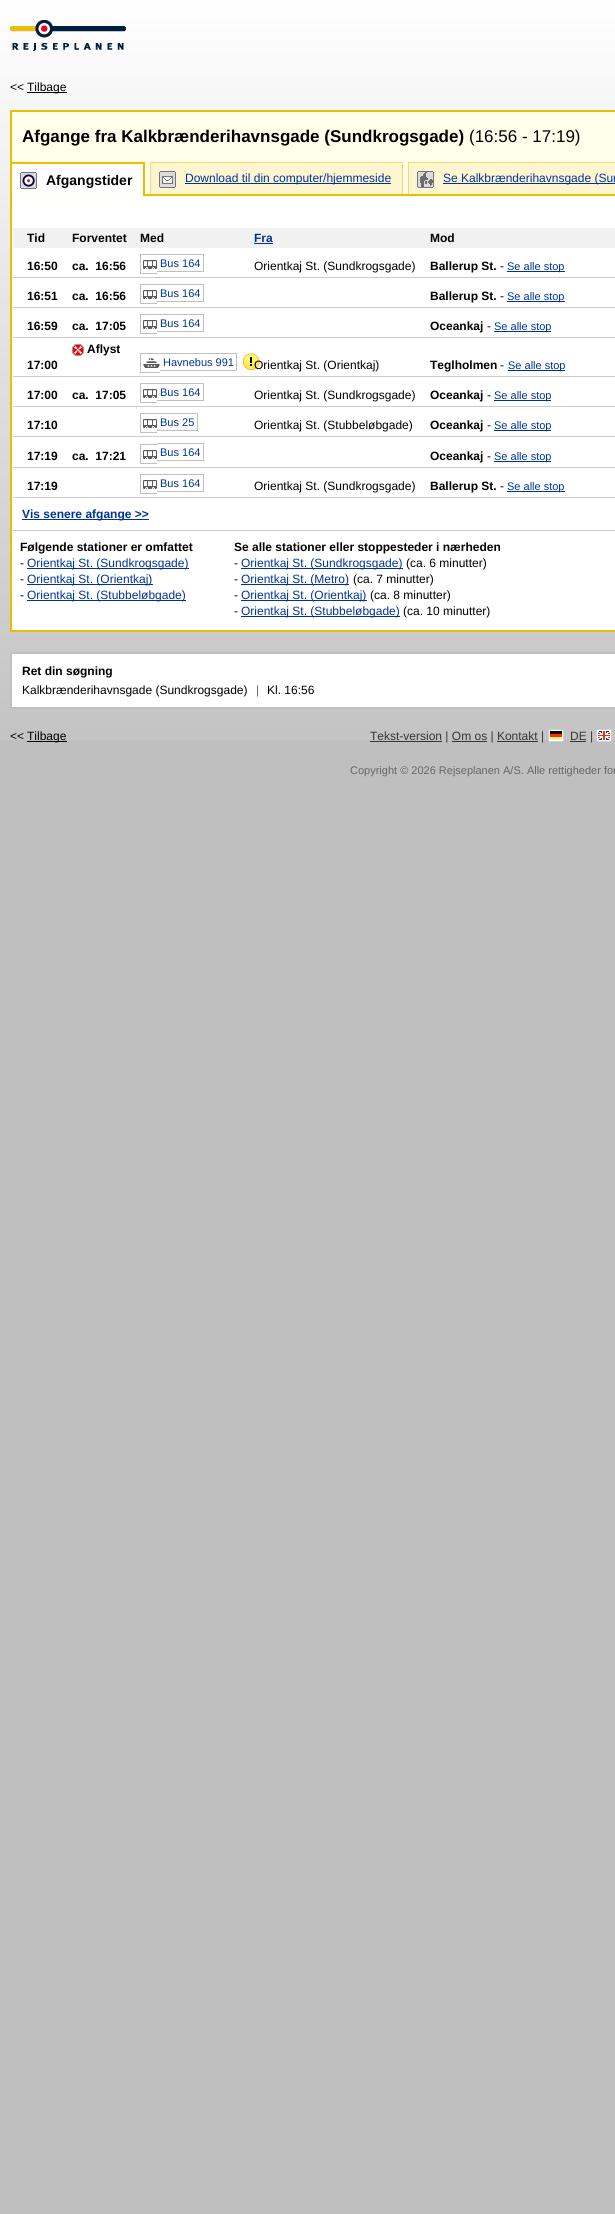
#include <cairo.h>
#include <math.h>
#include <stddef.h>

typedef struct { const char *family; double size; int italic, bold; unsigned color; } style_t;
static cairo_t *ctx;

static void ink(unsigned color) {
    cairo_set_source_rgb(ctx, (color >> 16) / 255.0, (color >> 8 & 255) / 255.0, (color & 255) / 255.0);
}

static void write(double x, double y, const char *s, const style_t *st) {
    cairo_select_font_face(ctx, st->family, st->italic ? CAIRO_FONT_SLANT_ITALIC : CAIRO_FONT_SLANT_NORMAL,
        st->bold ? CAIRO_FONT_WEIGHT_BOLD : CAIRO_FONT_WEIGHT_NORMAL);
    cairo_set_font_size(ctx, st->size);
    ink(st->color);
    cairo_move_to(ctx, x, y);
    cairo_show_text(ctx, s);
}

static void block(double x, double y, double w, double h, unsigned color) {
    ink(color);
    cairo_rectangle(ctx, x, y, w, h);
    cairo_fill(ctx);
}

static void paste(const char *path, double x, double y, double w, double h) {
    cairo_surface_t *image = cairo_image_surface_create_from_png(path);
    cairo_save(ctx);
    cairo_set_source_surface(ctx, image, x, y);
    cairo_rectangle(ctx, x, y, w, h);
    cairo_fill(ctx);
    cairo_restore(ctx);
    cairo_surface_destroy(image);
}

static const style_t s1 = {"Liberation Sans", 12, 0, 0, 0x000000};
static const style_t s2 = {"Liberation Sans", 17, 0, 1, 0x000000};
static const style_t s3 = {"Liberation Sans", 17, 0, 0, 0x000000};
static const style_t s4 = {"Liberation Sans", 14, 0, 1, 0x000000};
static const style_t s5 = {"Liberation Sans", 12, 0, 0, 0x003399};
static const style_t s6 = {"Liberation Sans", 12, 0, 1, 0x000000};
static const style_t s7 = {"Liberation Sans", 12, 0, 1, 0x003399};
static const style_t s8 = {"Liberation Sans", 11, 0, 0, 0x003399};
static const style_t s9 = {"Liberation Sans", 12, 0, 0, 0x666666};
static const style_t s10 = {"Liberation Sans", 12, 0, 0, 0x353535};
static const style_t s11 = {"Liberation Sans", 11, 0, 0, 0x666666};

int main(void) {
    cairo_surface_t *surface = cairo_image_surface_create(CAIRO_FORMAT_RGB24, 615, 2214);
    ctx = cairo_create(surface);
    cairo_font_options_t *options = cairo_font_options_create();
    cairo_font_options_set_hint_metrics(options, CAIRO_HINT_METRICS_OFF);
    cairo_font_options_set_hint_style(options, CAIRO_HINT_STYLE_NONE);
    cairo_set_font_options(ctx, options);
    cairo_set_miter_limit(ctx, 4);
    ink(0xbfbfbf);
    cairo_paint(ctx);
    paste("pic1.png", 0, 0, 615, 740);
    paste("pic2.png", 10, 20, 116, 31);
    write(10, 91, "<<", &s1);
    block(27, 92, 40, 1, 0x000000);
    write(27, 91, "Tilbage", &s1);
    block(12, 112, 603, 85, 0xfffeeb);
    block(10, 110, 605, 2, 0xecbd00);
    block(10, 110, 2, 52, 0xecbd00);
    write(22, 142, "Afgange fra Kalkbrænderihavnsgade (Sundkrogsgade)", &s2);
    write(469, 142, "(16:56 - 17:19)", &s3);
    block(145, 194, 470, 2, 0xecbd00);
    block(12, 164, 131, 32, 0xffffff);
    paste("pic3.png", 20, 172, 17, 17);
    block(12, 162, 133, 2, 0xecbd00);
    block(143, 162, 2, 34, 0xecbd00);
    write(46, 185, "Afgangstider", &s4);
    block(151, 163, 251, 31, 0xfef6d1);
    paste("pic4.png", 159, 171, 17, 17);
    block(150, 162, 253, 1, 0xf6da6a);
    block(402, 162, 1, 32, 0xf6da6a);
    block(150, 162, 1, 32, 0xf6da6a);
    block(185, 183, 206, 1, 0x003399);
    write(185, 182, "Download til din computer/hjemmeside", &s5);
    block(409, 163, 206, 31, 0xfef6d1);
    paste("pic5.png", 417, 171, 17, 17);
    block(408, 162, 207, 1, 0xf6da6a);
    block(408, 162, 1, 32, 0xf6da6a);
    block(443, 183, 172, 1, 0x003399);
    write(443, 182, "Se Kalkbrænderihavnsgade (Sun", &s5);
    block(12, 197, 603, 433, 0xffffff);
    block(10, 630, 605, 2, 0xecbd00);
    block(10, 162, 2, 470, 0xecbd00);
    block(13, 228, 602, 20, 0xf1f1f1);
    write(27, 242, "Tid", &s6);
    write(72, 242, "Forventet", &s6);
    write(140, 242, "Med", &s6);
    write(254, 242, "Fra", &s7);
    block(254, 243, 19, 1, 0x003399);
    write(430, 242, "Mod", &s6);
    block(13, 277, 602, 1, 0xcccccc);
    write(27, 270, "16:50", &s6);
    write(72, 270, "ca.  16:56", &s6);
    paste("pic6.png", 143, 260, 14, 9);
    write(160, 267, "Bus 164", &s8);
    block(140, 254, 64, 1, 0xc0c0c0);
    block(140, 273, 17, 1, 0xc0c0c0);
    block(140, 254, 1, 20, 0xc0c0c0);
    block(203, 254, 1, 18, 0xc0c0c0);
    block(157, 271, 47, 1, 0xc0c0c0);
    write(254, 270, "Orientkaj St. (Sundkrogsgade)", &s1);
    write(430, 270, "Ballerup St.", &s6);
    write(500, 270, "-", &s1);
    block(507, 271, 58, 1, 0x003399);
    write(507, 270, "Se alle stop", &s8);
    block(13, 307, 602, 1, 0xcccccc);
    write(27, 300, "16:51", &s6);
    write(72, 300, "ca.  16:56", &s6);
    paste("pic6.png", 143, 290, 14, 9);
    write(160, 297, "Bus 164", &s8);
    block(140, 284, 64, 1, 0xc0c0c0);
    block(140, 303, 17, 1, 0xc0c0c0);
    block(140, 284, 1, 20, 0xc0c0c0);
    block(203, 284, 1, 18, 0xc0c0c0);
    block(157, 301, 47, 1, 0xc0c0c0);
    write(430, 300, "Ballerup St.", &s6);
    write(500, 300, "-", &s1);
    block(507, 301, 58, 1, 0x003399);
    write(507, 300, "Se alle stop", &s8);
    block(13, 337, 602, 1, 0xcccccc);
    write(27, 330, "16:59", &s6);
    write(72, 330, "ca.  17:05", &s6);
    paste("pic6.png", 143, 320, 14, 9);
    write(160, 327, "Bus 164", &s8);
    block(140, 314, 64, 1, 0xc0c0c0);
    block(140, 333, 17, 1, 0xc0c0c0);
    block(140, 314, 1, 20, 0xc0c0c0);
    block(203, 314, 1, 18, 0xc0c0c0);
    block(157, 331, 47, 1, 0xc0c0c0);
    write(430, 330, "Oceankaj", &s6);
    write(487, 330, "-", &s1);
    block(494, 331, 57, 1, 0x003399);
    write(494, 330, "Se alle stop", &s8);
    paste("pic7.png", 72, 344, 12, 12);
    write(87, 353, "Aflyst", &s6);
    block(13, 376, 602, 1, 0xcccccc);
    write(27, 369, "17:00", &s6);
    paste("pic8.png", 143, 358, 17, 10);
    write(163, 366, "Havnebus 991", &s8);
    block(140, 353, 97, 1, 0xc0c0c0);
    block(140, 372, 20, 1, 0xc0c0c0);
    block(140, 353, 1, 20, 0xc0c0c0);
    block(236, 353, 1, 18, 0xc0c0c0);
    block(160, 370, 77, 1, 0xc0c0c0);
    paste("pic9.png", 243, 353, 17, 17);
    write(254, 369, "Orientkaj St. (Orientkaj)", &s1);
    write(430, 369, "Teglholmen", &s6);
    write(500, 369, "-", &s1);
    block(508, 370, 57, 1, 0x003399);
    write(508, 369, "Se alle stop", &s8);
    block(13, 406, 602, 1, 0xcccccc);
    write(27, 399, "17:00", &s6);
    write(72, 399, "ca.  17:05", &s6);
    paste("pic6.png", 143, 389, 14, 9);
    write(160, 396, "Bus 164", &s8);
    block(140, 383, 64, 1, 0xc0c0c0);
    block(140, 402, 17, 1, 0xc0c0c0);
    block(140, 383, 1, 20, 0xc0c0c0);
    block(203, 383, 1, 18, 0xc0c0c0);
    block(157, 400, 47, 1, 0xc0c0c0);
    write(254, 399, "Orientkaj St. (Sundkrogsgade)", &s1);
    write(430, 399, "Oceankaj", &s6);
    write(487, 399, "-", &s1);
    block(494, 400, 57, 1, 0x003399);
    write(494, 399, "Se alle stop", &s8);
    block(13, 436, 602, 1, 0xcccccc);
    write(27, 429, "17:10", &s6);
    paste("pic6.png", 143, 419, 14, 9);
    write(160, 426, "Bus 25", &s8);
    block(140, 413, 58, 1, 0xc0c0c0);
    block(140, 432, 17, 1, 0xc0c0c0);
    block(140, 413, 1, 20, 0xc0c0c0);
    block(197, 413, 1, 18, 0xc0c0c0);
    block(157, 430, 41, 1, 0xc0c0c0);
    write(254, 429, "Orientkaj St. (Stubbeløbgade)", &s1);
    write(430, 429, "Oceankaj", &s6);
    write(487, 429, "-", &s1);
    block(494, 430, 57, 1, 0x003399);
    write(494, 429, "Se alle stop", &s8);
    block(13, 467, 602, 1, 0xcccccc);
    write(27, 460, "17:19", &s6);
    write(72, 460, "ca.  17:21", &s6);
    paste("pic6.png", 143, 450, 14, 9);
    write(160, 456, "Bus 164", &s8);
    block(140, 444, 17, 1, 0xc0c0c0);
    block(140, 463, 17, 1, 0xc0c0c0);
    block(140, 444, 1, 20, 0xc0c0c0);
    block(157, 443, 47, 1, 0xc0c0c0);
    block(203, 443, 1, 18, 0xc0c0c0);
    block(157, 460, 47, 1, 0xc0c0c0);
    write(430, 460, "Oceankaj", &s6);
    write(487, 460, "-", &s1);
    block(494, 461, 57, 1, 0x003399);
    write(494, 460, "Se alle stop", &s8);
    block(13, 497, 602, 1, 0xcccccc);
    write(27, 490, "17:19", &s6);
    paste("pic6.png", 143, 480, 14, 9);
    write(160, 487, "Bus 164", &s8);
    block(140, 474, 64, 1, 0xc0c0c0);
    block(140, 493, 17, 1, 0xc0c0c0);
    block(140, 474, 1, 20, 0xc0c0c0);
    block(203, 474, 1, 18, 0xc0c0c0);
    block(157, 491, 47, 1, 0xc0c0c0);
    write(254, 490, "Orientkaj St. (Sundkrogsgade)", &s1);
    write(430, 490, "Ballerup St.", &s6);
    write(500, 490, "-", &s1);
    block(507, 491, 58, 1, 0x003399);
    write(507, 490, "Se alle stop", &s8);
    block(13, 530, 602, 1, 0xcccccc);
    block(22, 519, 127, 1, 0x003399);
    write(22, 518, "Vis senere afgange >>", &s7);
    write(20, 551, "Følgende stationer er omfattet", &s6);
    write(20, 567, "-", &s1);
    block(27, 568, 162, 1, 0x003399);
    write(27, 567, "Orientkaj St. (Sundkrogsgade)", &s5);
    write(20, 583, "-", &s1);
    block(27, 584, 126, 1, 0x003399);
    write(27, 583, "Orientkaj St. (Orientkaj)", &s5);
    write(20, 599, "-", &s1);
    block(27, 600, 159, 1, 0x003399);
    write(27, 599, "Orientkaj St. (Stubbeløbgade)", &s5);
    write(234, 551, "Se alle stationer eller stoppesteder i nærheden", &s6);
    write(234, 567, "-", &s1);
    block(241, 568, 162, 1, 0x003399);
    write(241, 567, "Orientkaj St. (Sundkrogsgade)", &s5);
    write(406, 567, "(ca. 6 minutter)", &s1);
    write(234, 583, "-", &s1);
    block(241, 584, 108, 1, 0x003399);
    write(241, 583, "Orientkaj St. (Metro)", &s5);
    write(353, 583, "(ca. 7 minutter)", &s1);
    write(234, 599, "-", &s1);
    block(241, 600, 126, 1, 0x003399);
    write(241, 599, "Orientkaj St. (Orientkaj)", &s5);
    write(370, 599, "(ca. 8 minutter)", &s1);
    write(234, 615, "-", &s1);
    block(241, 616, 159, 1, 0x003399);
    write(241, 615, "Orientkaj St. (Stubbeløbgade)", &s5);
    write(403, 615, "(ca. 10 minutter)", &s1);
    ink(0xffffff);
    cairo_rectangle(ctx, 11, 653, 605, 55);
    cairo_fill_preserve(ctx);
    ink(0xc0c0c0);
    cairo_stroke(ctx);
    write(22, 675, "Ret din søgning", &s6);
    write(22, 694, "Kalkbrænderihavnsgade (Sundkrogsgade)", &s1);
    write(256, 694, "|", &s9);
    write(267, 694, "Kl. 16:56", &s1);
    write(10, 740, "<<", &s1);
    block(27, 741, 40, 1, 0x000000);
    write(27, 740, "Tilbage", &s1);
    block(370, 741, 72, 1, 0x353535);
    write(370, 740, "Tekst-version | Om os | Kontakt |", &s10);
    paste("pic10.png", 548, 729, 16, 13);
    block(570, 741, 16, 1, 0x353535);
    write(570, 740, "DE |", &s10);
    paste("pic11.png", 596, 729, 16, 13);
    block(452, 741, 35, 1, 0x353535);
    block(497, 741, 41, 1, 0x353535);
    write(350, 774, "Copyright © 2026 Rejseplanen A/S. Alle rettigheder for", &s11);
    cairo_surface_write_to_png(surface, "screenshot.png");
    cairo_font_options_destroy(options);
    cairo_destroy(ctx);
    cairo_surface_destroy(surface);
    return 0;
}
